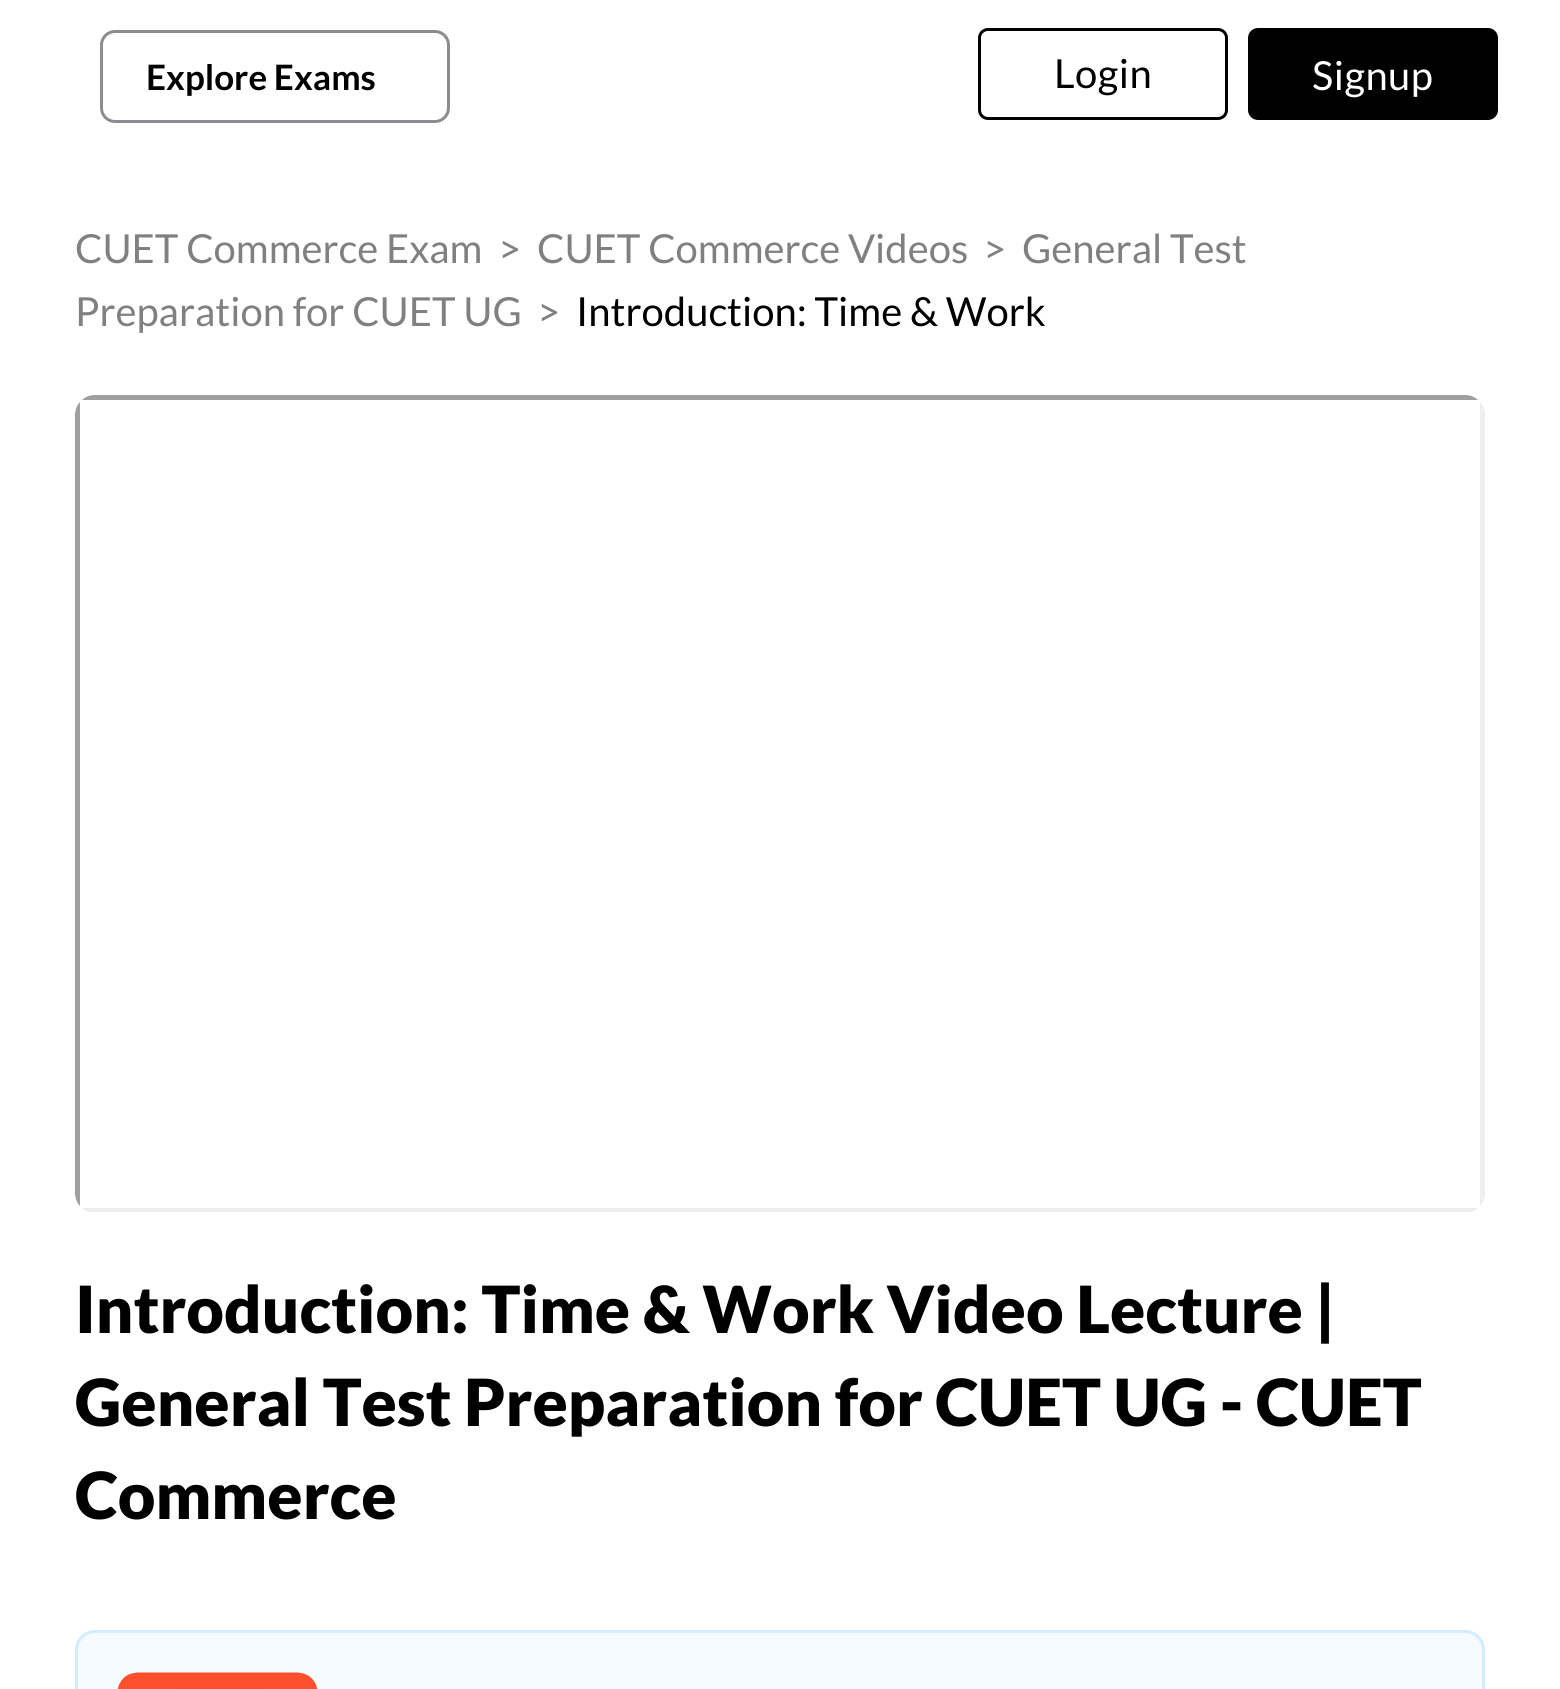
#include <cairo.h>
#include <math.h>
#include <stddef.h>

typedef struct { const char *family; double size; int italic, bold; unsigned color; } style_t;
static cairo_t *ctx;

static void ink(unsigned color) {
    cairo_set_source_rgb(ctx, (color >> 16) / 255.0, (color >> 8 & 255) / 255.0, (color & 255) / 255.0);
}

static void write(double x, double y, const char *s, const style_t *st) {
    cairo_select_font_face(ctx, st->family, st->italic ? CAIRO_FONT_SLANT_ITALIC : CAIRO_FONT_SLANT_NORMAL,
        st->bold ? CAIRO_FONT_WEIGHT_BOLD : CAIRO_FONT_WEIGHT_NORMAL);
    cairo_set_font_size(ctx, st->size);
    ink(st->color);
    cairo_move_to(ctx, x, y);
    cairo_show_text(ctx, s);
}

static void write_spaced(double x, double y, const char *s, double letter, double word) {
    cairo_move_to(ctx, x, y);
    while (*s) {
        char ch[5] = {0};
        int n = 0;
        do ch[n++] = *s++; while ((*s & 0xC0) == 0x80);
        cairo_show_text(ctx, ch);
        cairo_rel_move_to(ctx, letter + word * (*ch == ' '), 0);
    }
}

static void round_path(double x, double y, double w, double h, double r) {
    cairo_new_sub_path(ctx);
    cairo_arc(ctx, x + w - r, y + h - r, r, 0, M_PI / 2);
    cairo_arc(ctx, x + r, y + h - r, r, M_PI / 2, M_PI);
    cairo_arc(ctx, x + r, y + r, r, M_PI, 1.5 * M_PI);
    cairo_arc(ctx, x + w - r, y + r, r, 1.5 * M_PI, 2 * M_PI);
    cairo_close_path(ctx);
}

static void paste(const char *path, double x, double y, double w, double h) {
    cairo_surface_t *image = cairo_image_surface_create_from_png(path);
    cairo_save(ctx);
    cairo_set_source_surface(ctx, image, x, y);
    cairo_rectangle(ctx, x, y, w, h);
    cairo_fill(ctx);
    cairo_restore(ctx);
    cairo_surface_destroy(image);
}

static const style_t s1 = {"Lato", 35, 0, 1, 0x000000};
static const style_t s2 = {"Lato", 40, 0, 0, 0x808080};
static const style_t s3 = {"Lato", 40, 0, 0, 0x000000};
static const style_t s4 = {"Lato Black", 65, 0, 0, 0x000000};

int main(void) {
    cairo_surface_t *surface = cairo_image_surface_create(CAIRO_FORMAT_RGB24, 1560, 1689);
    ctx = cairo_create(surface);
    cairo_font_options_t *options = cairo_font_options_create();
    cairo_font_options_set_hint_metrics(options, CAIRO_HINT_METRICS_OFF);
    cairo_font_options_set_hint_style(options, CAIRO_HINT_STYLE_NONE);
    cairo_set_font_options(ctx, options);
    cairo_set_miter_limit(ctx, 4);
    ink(0xffffff);
    cairo_paint(ctx);
    round_path(101.5, 31.5, 347, 90, 13.5);
    ink(0x8a8c8f);
    cairo_set_line_width(ctx, 3);
    cairo_stroke(ctx);
    write(146, 90, "Explore Exams", &s1);
    round_path(979.5, 29.5, 247, 89, 8.5);
    cairo_stroke(ctx);
    cairo_select_font_face(ctx, "Lato", CAIRO_FONT_SLANT_NORMAL, CAIRO_FONT_WEIGHT_NORMAL);
    cairo_set_font_size(ctx, 40);
    write_spaced(1054, 88, "Login", 0.5, 0);
    round_path(1249.5, 29.5, 247, 89, 8.5);
    cairo_fill_preserve(ctx);
    cairo_stroke(ctx);
    ink(0xffffff);
    write_spaced(1312, 90, "Signup", 0.5, 0);
    write(75, 263, "CUET Commerce Exam", &s2);
    write(498, 263, ">", &s2);
    write(537, 263, "CUET Commerce Videos", &s2);
    write(983, 263, ">", &s2);
    write(1022, 263, "General Test", &s2);
    write(75, 326, "Preparation for CUET UG", &s2);
    write(537, 326, ">", &s2);
    write(576, 326, "Introduction: Time & Work", &s3);
    ink(0x9f9f9f);
    cairo_new_path(ctx);
    cairo_move_to(ctx, 95, 395);
    cairo_line_to(ctx, 1465, 395);
    cairo_curve_to(ctx, 1470, 395, 1475, 397, 1478, 400);
    cairo_line_to(ctx, 82, 400);
    cairo_curve_to(ctx, 85, 397, 90, 395, 95, 395);
    cairo_close_path(ctx);
    cairo_fill(ctx);
    ink(0xeeeeee);
    cairo_new_path(ctx);
    cairo_move_to(ctx, 1485, 1193);
    cairo_line_to(ctx, 1485, 415);
    cairo_curve_to(ctx, 1485, 410, 1483, 405, 1480, 402);
    cairo_line_to(ctx, 1480, 1206);
    cairo_curve_to(ctx, 1483, 1203, 1485, 1198, 1485, 1193);
    cairo_close_path(ctx);
    cairo_fill(ctx);
    cairo_new_path(ctx);
    cairo_move_to(ctx, 89, 1212);
    cairo_curve_to(ctx, 86, 1211, 84, 1210, 82, 1208);
    cairo_line_to(ctx, 1478, 1208);
    cairo_curve_to(ctx, 1476, 1210, 1474, 1211, 1471, 1212);
    cairo_close_path(ctx);
    cairo_fill(ctx);
    ink(0x9f9f9f);
    cairo_new_path(ctx);
    cairo_move_to(ctx, 80, 402);
    cairo_line_to(ctx, 80, 1206);
    cairo_curve_to(ctx, 77, 1203, 75, 1198, 75, 1193);
    cairo_line_to(ctx, 75, 415);
    cairo_curve_to(ctx, 75, 410, 77, 405, 80, 402);
    cairo_close_path(ctx);
    cairo_fill(ctx);
    write(75, 1333, "Introduction: Time & Work Video Lecture |", &s4);
    write(75, 1426, "General Test Preparation for CUET UG - CUET", &s4);
    write(75, 1519, "Commerce", &s4);
    ink(0xf6fbff);
    round_path(76.5, 1631.5, 1407, 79, 18.5);
    cairo_fill_preserve(ctx);
    ink(0xd3ecff);
    cairo_stroke(ctx);
    paste("pic1.png", 117, 1672, 201, 17);
    cairo_surface_write_to_png(surface, "screenshot.png");
    cairo_font_options_destroy(options);
    cairo_destroy(ctx);
    cairo_surface_destroy(surface);
    return 0;
}
